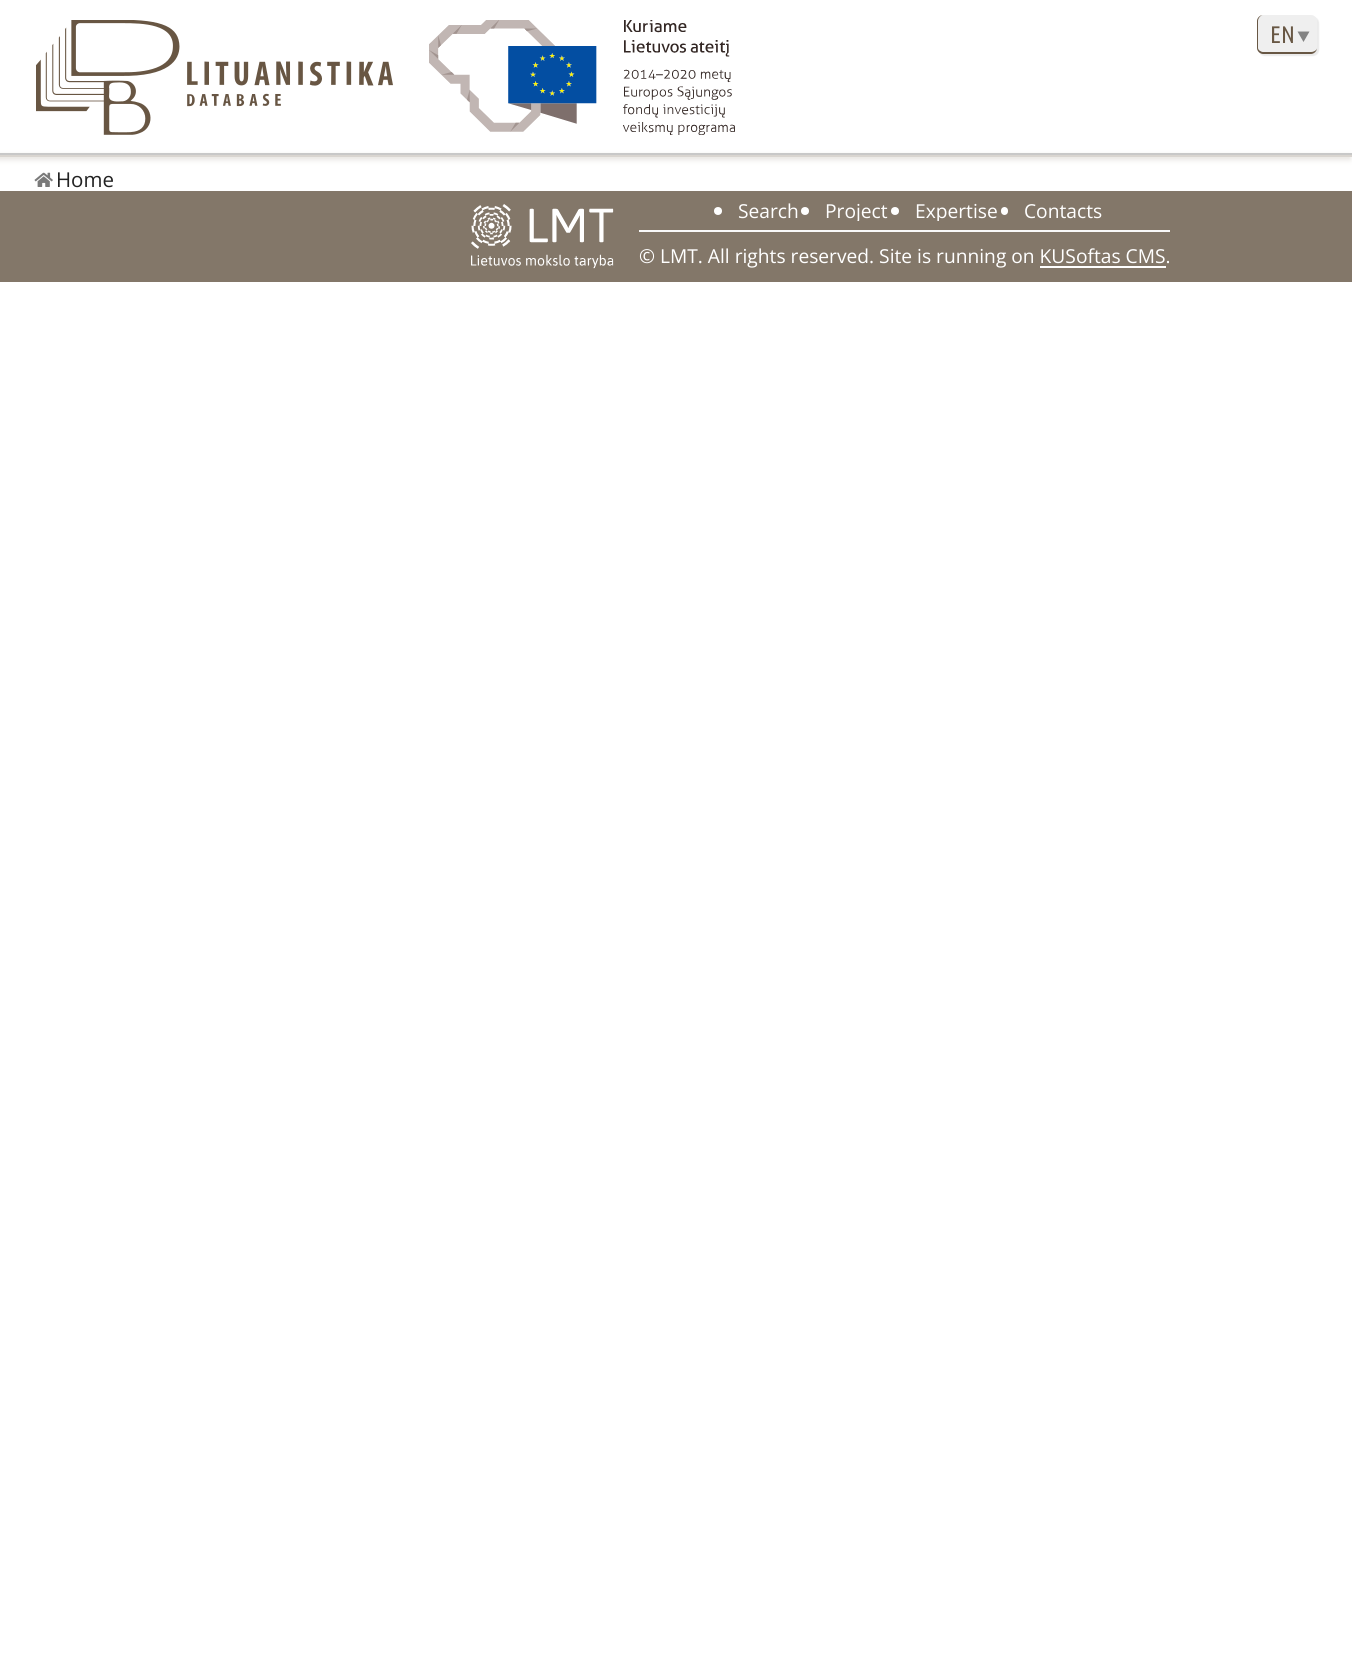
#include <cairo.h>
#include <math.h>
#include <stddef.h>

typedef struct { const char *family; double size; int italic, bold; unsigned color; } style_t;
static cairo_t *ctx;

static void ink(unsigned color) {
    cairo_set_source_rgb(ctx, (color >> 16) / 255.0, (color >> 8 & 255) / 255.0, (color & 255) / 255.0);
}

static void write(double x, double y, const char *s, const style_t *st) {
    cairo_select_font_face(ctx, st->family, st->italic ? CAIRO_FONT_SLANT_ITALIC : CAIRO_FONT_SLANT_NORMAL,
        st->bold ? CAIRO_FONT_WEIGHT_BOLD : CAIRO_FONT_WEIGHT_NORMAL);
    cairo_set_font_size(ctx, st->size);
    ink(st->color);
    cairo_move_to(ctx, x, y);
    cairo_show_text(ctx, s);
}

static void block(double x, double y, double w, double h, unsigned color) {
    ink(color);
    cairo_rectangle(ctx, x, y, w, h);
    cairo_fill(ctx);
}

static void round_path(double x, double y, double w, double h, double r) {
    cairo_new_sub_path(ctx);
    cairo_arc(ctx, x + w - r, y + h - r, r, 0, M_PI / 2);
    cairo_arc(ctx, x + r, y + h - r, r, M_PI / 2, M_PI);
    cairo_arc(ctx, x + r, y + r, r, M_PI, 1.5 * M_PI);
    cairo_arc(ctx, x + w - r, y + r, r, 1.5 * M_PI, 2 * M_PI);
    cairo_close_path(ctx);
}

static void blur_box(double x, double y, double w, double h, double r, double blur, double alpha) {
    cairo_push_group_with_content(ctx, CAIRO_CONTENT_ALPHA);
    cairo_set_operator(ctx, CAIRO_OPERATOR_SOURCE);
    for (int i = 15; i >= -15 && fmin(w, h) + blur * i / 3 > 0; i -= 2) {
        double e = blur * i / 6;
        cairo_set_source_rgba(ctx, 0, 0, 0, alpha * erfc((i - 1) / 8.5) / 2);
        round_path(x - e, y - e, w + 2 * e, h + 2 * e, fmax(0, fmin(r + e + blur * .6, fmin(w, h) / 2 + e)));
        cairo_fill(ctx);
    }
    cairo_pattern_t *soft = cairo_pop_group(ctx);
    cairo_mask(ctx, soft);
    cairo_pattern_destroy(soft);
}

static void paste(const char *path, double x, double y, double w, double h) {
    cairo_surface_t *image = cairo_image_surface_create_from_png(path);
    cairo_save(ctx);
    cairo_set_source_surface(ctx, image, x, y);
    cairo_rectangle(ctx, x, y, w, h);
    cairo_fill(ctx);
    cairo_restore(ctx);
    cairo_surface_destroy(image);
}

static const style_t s1 = {"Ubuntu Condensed", 24, 0, 0, 0x685744};
static const style_t s2 = {"Open Sans", 20.5, 0, 0, 0x222222};
static const style_t s3 = {"Open Sans", 19.2, 0, 0, 0xffffff};

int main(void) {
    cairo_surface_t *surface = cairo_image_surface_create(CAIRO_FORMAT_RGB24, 1352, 1676);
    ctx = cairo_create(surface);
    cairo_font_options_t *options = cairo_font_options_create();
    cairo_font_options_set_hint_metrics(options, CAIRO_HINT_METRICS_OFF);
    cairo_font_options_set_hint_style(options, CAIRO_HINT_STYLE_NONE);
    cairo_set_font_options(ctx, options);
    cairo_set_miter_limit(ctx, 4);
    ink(0xffffff);
    cairo_paint(ctx);
    paste("pic1.png", 36, 20, 357, 115);
    paste("pic2.png", 429, 20, 306, 115);
    ink(0x323232);
    blur_box(1259, 17, 60, 39, 6, 0.5, 0.1);
    ink(0xefefef);
    round_path(1257, 15, 60, 39, 6);
    cairo_fill(ctx);
    ink(0x685744);
    cairo_set_fill_rule(ctx, CAIRO_FILL_RULE_EVEN_ODD);
    cairo_new_path(ctx);
    cairo_move_to(ctx, 1263, 15);
    cairo_line_to(ctx, 1311, 15);
    cairo_curve_to(ctx, 1314, 15, 1317, 18, 1317, 21);
    cairo_line_to(ctx, 1317, 48);
    cairo_curve_to(ctx, 1317, 51, 1314, 54, 1311, 54);
    cairo_line_to(ctx, 1263, 54);
    cairo_curve_to(ctx, 1260, 54, 1257, 51, 1257, 48);
    cairo_line_to(ctx, 1257, 21);
    cairo_curve_to(ctx, 1257, 18, 1260, 15, 1263, 15);
    cairo_close_path(ctx);
    cairo_move_to(ctx, 1263, 15);
    cairo_line_to(ctx, 1311, 15);
    cairo_curve_to(ctx, 1314, 15, 1317, 18, 1317, 21);
    cairo_line_to(ctx, 1317, 48);
    cairo_curve_to(ctx, 1317, 50, 1314, 52, 1311, 52);
    cairo_line_to(ctx, 1263, 52);
    cairo_curve_to(ctx, 1261, 52, 1258, 50, 1258, 48);
    cairo_line_to(ctx, 1258, 21);
    cairo_curve_to(ctx, 1258, 18, 1261, 15, 1263, 15);
    cairo_close_path(ctx);
    cairo_fill(ctx);
    write(1270, 43, "EN", &s1);
    ink(0x838383);
    cairo_set_fill_rule(ctx, CAIRO_FILL_RULE_WINDING);
    cairo_new_path(ctx);
    cairo_move_to(ctx, 1297.5, 31.5);
    cairo_line_to(ctx, 1309.5, 31.5);
    cairo_line_to(ctx, 1303.5, 42);
    cairo_close_path(ctx);
    cairo_fill(ctx);
    ink(0xd9d5d0);
    blur_box(-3, 156, 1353, 3, 0, 3, 0.8);
    block(0, 153, 1352, 2, 0xc8c8c8);
    block(0, 155, 1352, 2, 0xd9d5d0);
    paste("pic3.png", 34, 172, 19, 15);
    write(56, 187, "Home", &s2);
    block(0, 191, 1352, 91, 0x837769);
    paste("pic4.png", 471, 204, 143, 65);
    block(639, 230, 531, 2, 0xf8f8f8);
    ink(0xffffff);
    cairo_arc(ctx, 718, 211, 4, 0, 2 * M_PI);
    cairo_fill(ctx);
    write(738, 218, "Search", &s3);
    cairo_new_path(ctx);
    cairo_arc(ctx, 805, 211, 4, 0, 2 * M_PI);
    cairo_fill(ctx);
    cairo_save(ctx);
    cairo_rectangle(ctx, 693, 201, 423, 20);
    cairo_clip(ctx);
    write(825, 218, "Project", &s3);
    cairo_restore(ctx);
    cairo_new_path(ctx);
    cairo_arc(ctx, 895, 211, 4, 0, 2 * M_PI);
    cairo_fill(ctx);
    cairo_save(ctx);
    cairo_rectangle(ctx, 693, 201, 423, 20);
    cairo_clip(ctx);
    write(915, 218, "Expertise", &s3);
    cairo_restore(ctx);
    round_path(1001, 207, 7, 8, 3.5);
    cairo_fill(ctx);
    write(1024, 218, "Contacts", &s3);
    write(639, 263, "© LMT. All rights reserved. Site is running on KUSoftas CMS.", &s3);
    block(1040, 266, 126, 2, 0xffffff);
    cairo_surface_write_to_png(surface, "screenshot.png");
    cairo_font_options_destroy(options);
    cairo_destroy(ctx);
    cairo_surface_destroy(surface);
    return 0;
}
